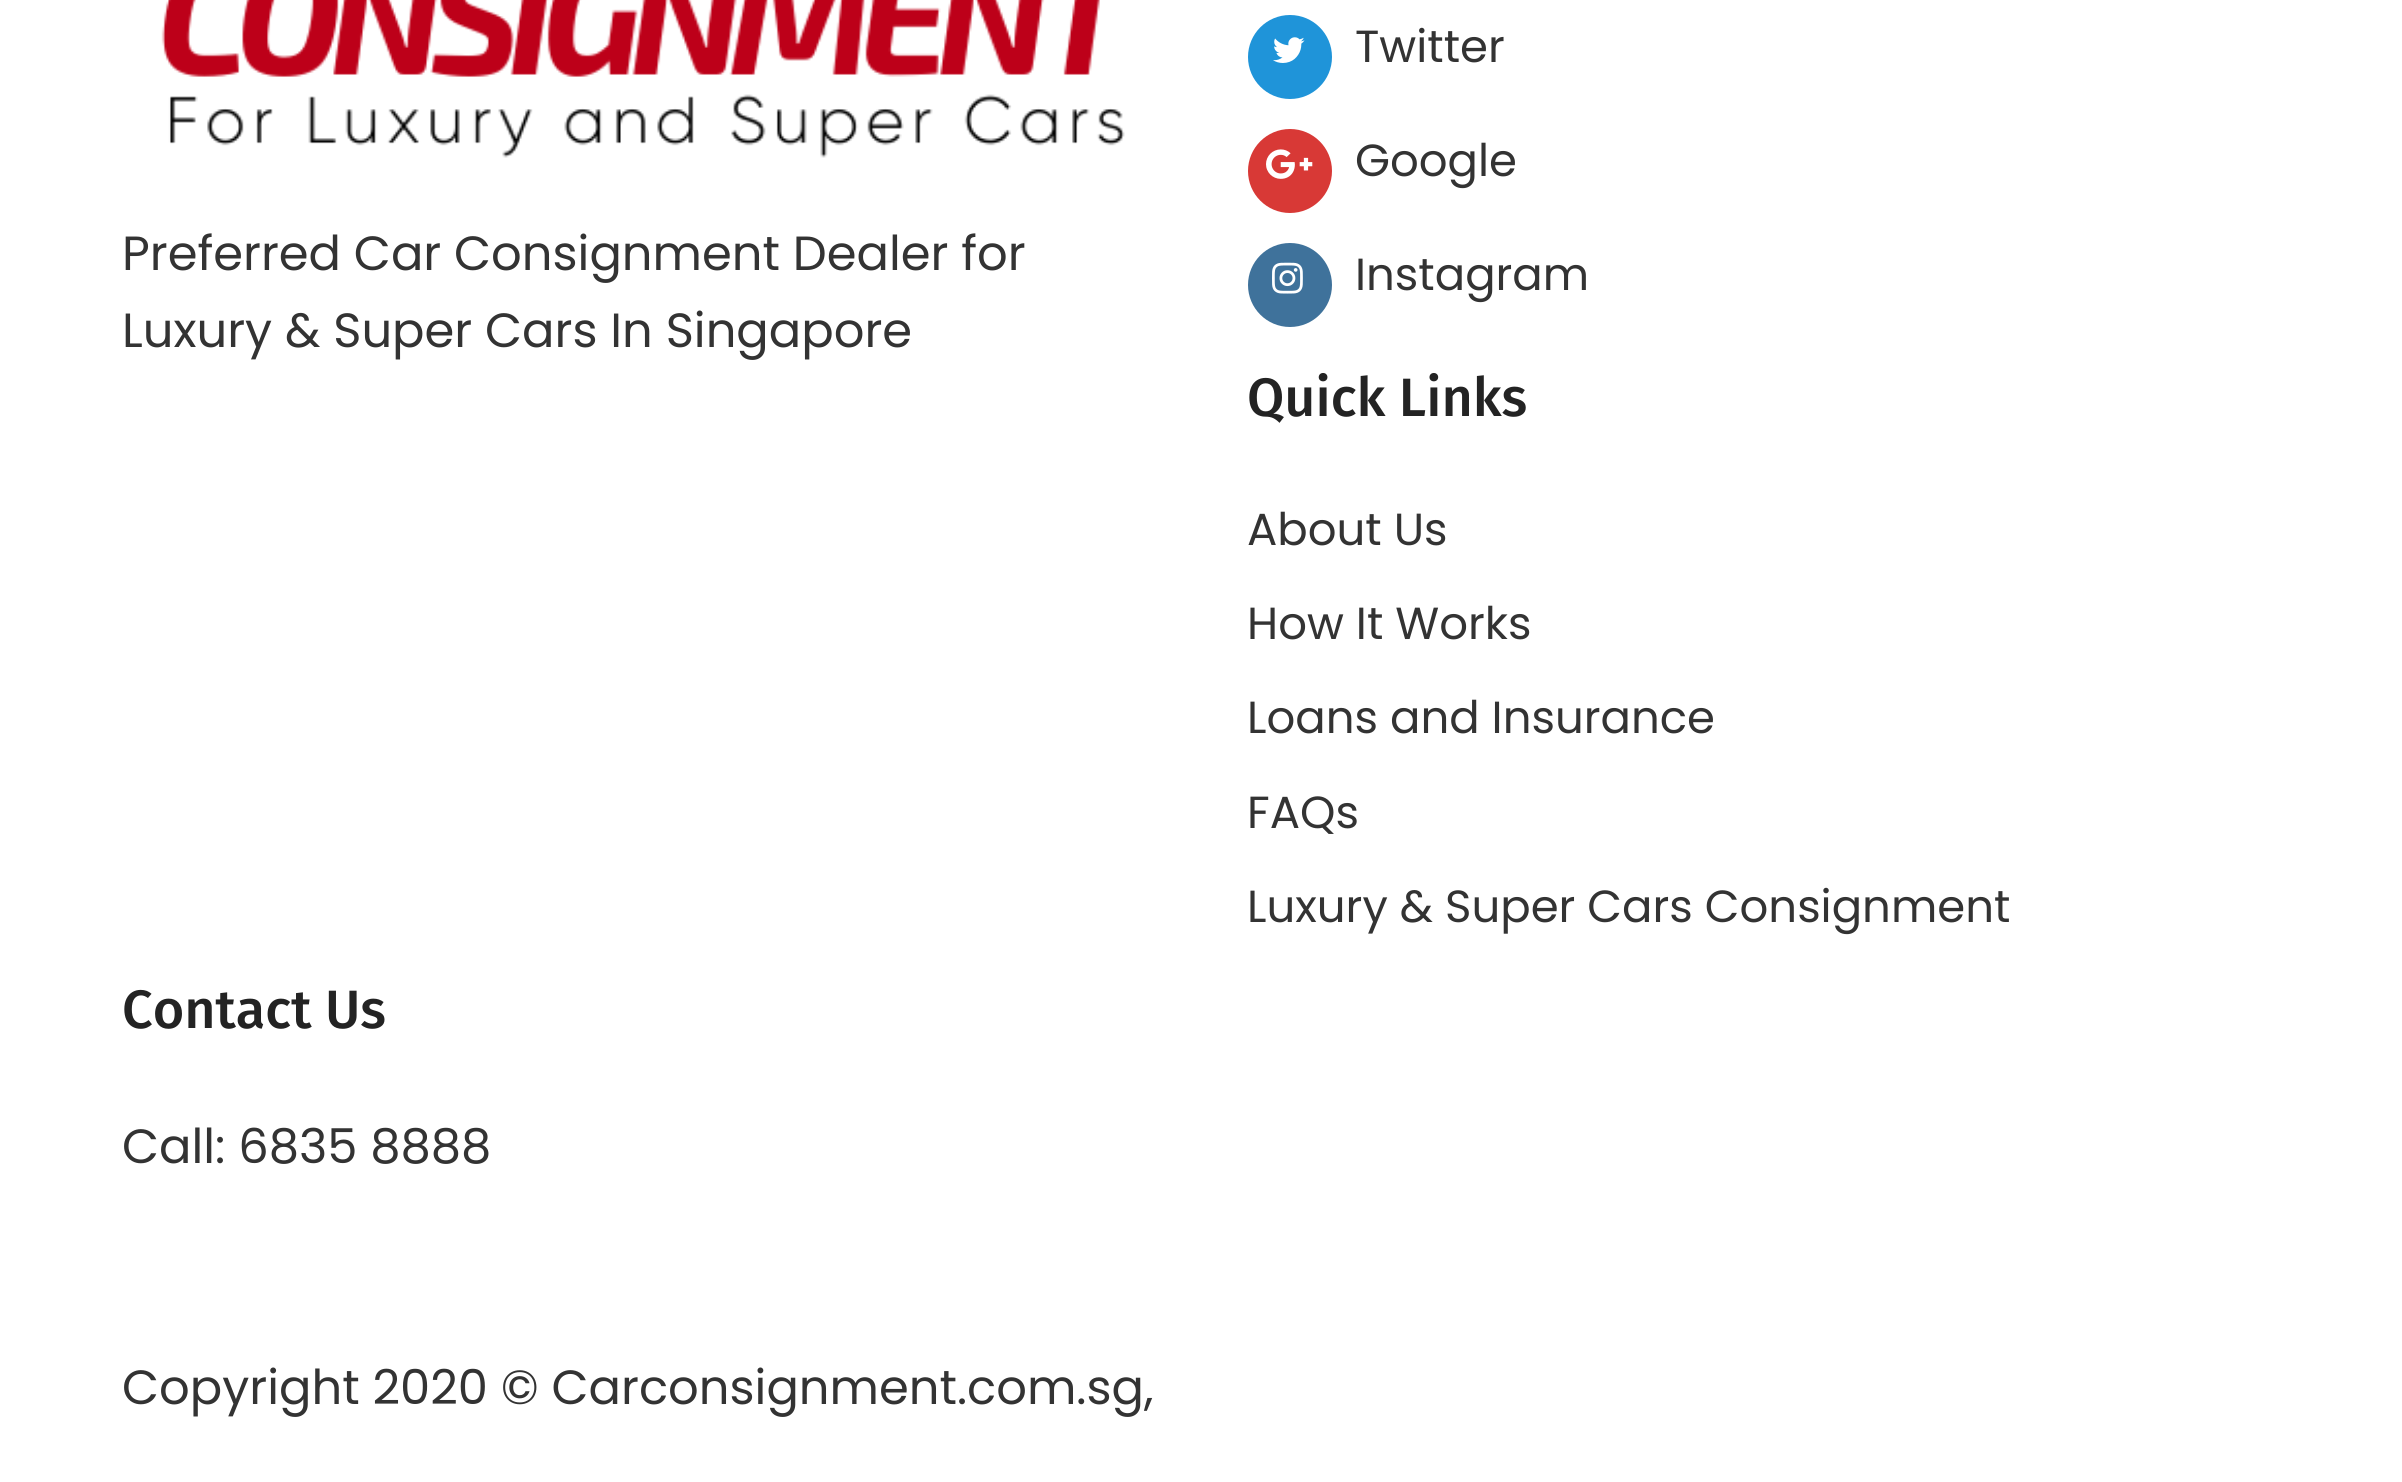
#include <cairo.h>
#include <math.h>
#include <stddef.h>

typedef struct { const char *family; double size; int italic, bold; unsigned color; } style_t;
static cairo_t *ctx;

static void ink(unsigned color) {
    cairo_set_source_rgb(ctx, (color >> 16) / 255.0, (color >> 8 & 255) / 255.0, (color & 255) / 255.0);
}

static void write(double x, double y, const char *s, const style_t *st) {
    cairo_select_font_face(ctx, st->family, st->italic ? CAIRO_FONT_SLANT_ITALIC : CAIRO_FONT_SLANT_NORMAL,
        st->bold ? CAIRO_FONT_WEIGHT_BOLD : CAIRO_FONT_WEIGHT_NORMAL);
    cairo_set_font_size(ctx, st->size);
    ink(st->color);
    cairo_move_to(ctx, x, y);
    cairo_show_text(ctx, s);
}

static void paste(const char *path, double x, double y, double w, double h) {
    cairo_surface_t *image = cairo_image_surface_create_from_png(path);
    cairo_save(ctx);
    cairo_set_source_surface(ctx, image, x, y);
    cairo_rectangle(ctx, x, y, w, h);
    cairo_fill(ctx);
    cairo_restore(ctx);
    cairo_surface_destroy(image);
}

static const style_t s1 = {"Poppins", 48, 0, 0, 0x333333};
static const style_t s2 = {"Poppins", 45, 0, 0, 0x333333};
static const style_t s3 = {"Fira Sans Medium", 54, 0, 0, 0x232323};

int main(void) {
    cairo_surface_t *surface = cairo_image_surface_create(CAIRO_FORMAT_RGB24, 2402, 1482);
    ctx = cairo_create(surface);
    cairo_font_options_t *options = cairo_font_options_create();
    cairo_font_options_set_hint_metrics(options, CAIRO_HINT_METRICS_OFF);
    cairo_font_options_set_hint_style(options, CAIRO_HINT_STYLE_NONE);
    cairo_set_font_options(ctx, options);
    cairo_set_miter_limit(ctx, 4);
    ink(0xffffff);
    cairo_paint(ctx);
    paste("pic1.png", 161, 0, 964, 158);
    write(122, 270, "Preferred Car Consignment Dealer for", &s1);
    write(122, 347, "Luxury & Super Cars In Singapore", &s1);
    ink(0x1f94d9);
    cairo_new_path(ctx);
    cairo_arc(ctx, 1290, 57, 42, 0, 2 * M_PI);
    cairo_fill(ctx);
    paste("pic2.png", 1273, 37, 32, 26);
    write(1355, 62, "Twitter", &s2);
    ink(0xd83936);
    cairo_new_path(ctx);
    cairo_arc(ctx, 1290, 171, 42, 0, 2 * M_PI);
    cairo_fill(ctx);
    paste("pic3.png", 1266, 149, 47, 30);
    write(1355, 176, "Google", &s2);
    ink(0x3f729b);
    cairo_new_path(ctx);
    cairo_arc(ctx, 1290, 285, 42, 0, 2 * M_PI);
    cairo_fill(ctx);
    paste("pic4.png", 1272, 262, 31, 32);
    write(1355, 290, "Instagram", &s2);
    write(1247, 416, "Quick Links", &s3);
    write(1247, 545, "About Us", &s2);
    write(1247, 639, "How It Works", &s2);
    write(1247, 733, "Loans and Insurance", &s2);
    write(1247, 828, "FAQs", &s2);
    write(1247, 922, "Luxury & Super Cars Consignment", &s2);
    write(122, 1028, "Contact Us", &s3);
    write(122, 1163, "Call: 6835 8888", &s1);
    write(122, 1404, "Copyright 2020 © Carconsignment.com.sg,", &s1);
    cairo_surface_write_to_png(surface, "screenshot.png");
    cairo_font_options_destroy(options);
    cairo_destroy(ctx);
    cairo_surface_destroy(surface);
    return 0;
}
